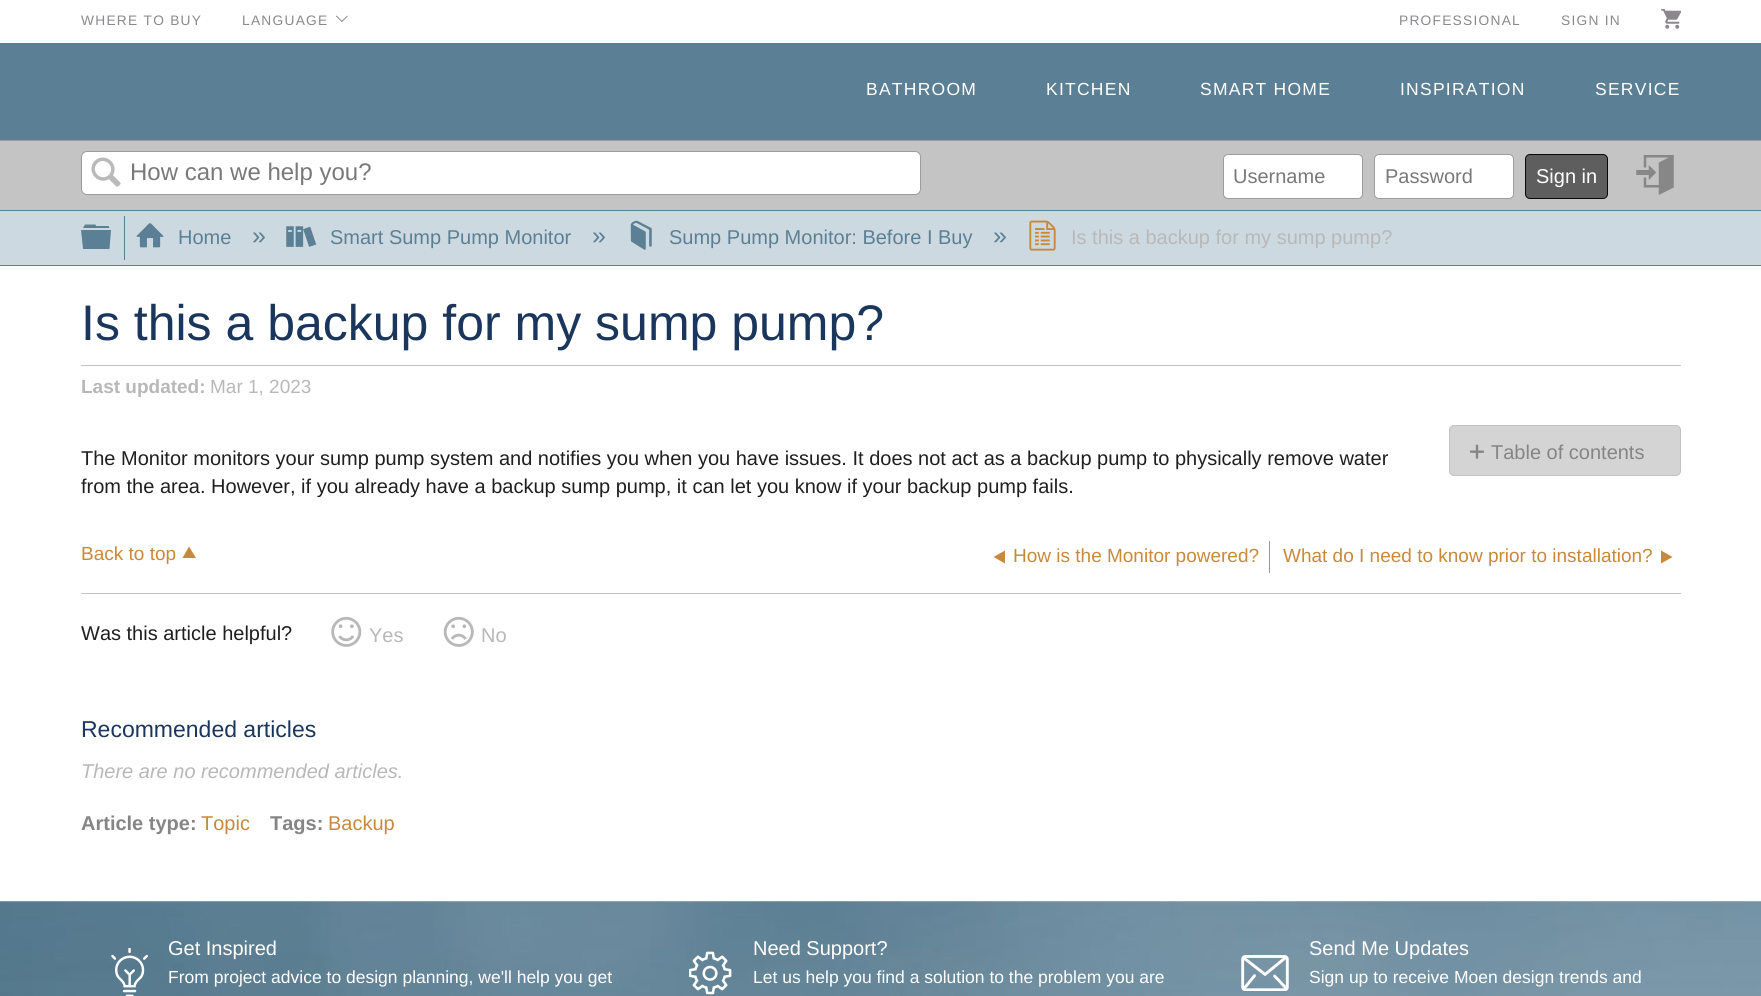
#include <cairo.h>
#include <math.h>
#include <stddef.h>

typedef struct { const char *family; double size; int italic, bold; unsigned color; } style_t;
static cairo_t *ctx;

static void ink(unsigned color) {
    cairo_set_source_rgb(ctx, (color >> 16) / 255.0, (color >> 8 & 255) / 255.0, (color & 255) / 255.0);
}

static void write(double x, double y, const char *s, const style_t *st) {
    cairo_select_font_face(ctx, st->family, st->italic ? CAIRO_FONT_SLANT_ITALIC : CAIRO_FONT_SLANT_NORMAL,
        st->bold ? CAIRO_FONT_WEIGHT_BOLD : CAIRO_FONT_WEIGHT_NORMAL);
    cairo_set_font_size(ctx, st->size);
    ink(st->color);
    cairo_move_to(ctx, x, y);
    cairo_show_text(ctx, s);
}

static void write_spaced(double x, double y, const char *s, double letter, double word) {
    cairo_move_to(ctx, x, y);
    while (*s) {
        char ch[5] = {0};
        int n = 0;
        do ch[n++] = *s++; while ((*s & 0xC0) == 0x80);
        cairo_show_text(ctx, ch);
        cairo_rel_move_to(ctx, letter + word * (*ch == ' '), 0);
    }
}

static void block(double x, double y, double w, double h, unsigned color) {
    ink(color);
    cairo_rectangle(ctx, x, y, w, h);
    cairo_fill(ctx);
}

static void round_path(double x, double y, double w, double h, double r) {
    cairo_new_sub_path(ctx);
    cairo_arc(ctx, x + w - r, y + h - r, r, 0, M_PI / 2);
    cairo_arc(ctx, x + r, y + h - r, r, M_PI / 2, M_PI);
    cairo_arc(ctx, x + r, y + r, r, M_PI, 1.5 * M_PI);
    cairo_arc(ctx, x + w - r, y + r, r, 1.5 * M_PI, 2 * M_PI);
    cairo_close_path(ctx);
}

static void paste(const char *path, double x, double y, double w, double h) {
    cairo_surface_t *image = cairo_image_surface_create_from_png(path);
    cairo_save(ctx);
    cairo_set_source_surface(ctx, image, x, y);
    cairo_rectangle(ctx, x, y, w, h);
    cairo_fill(ctx);
    cairo_restore(ctx);
    cairo_surface_destroy(image);
}

static const style_t s1 = {"Liberation Sans", 24, 0, 0, 0x797979};
static const style_t s2 = {"Liberation Sans", 20, 0, 0, 0x797979};
static const style_t s3 = {"Liberation Sans", 20, 0, 0, 0xffffff};
static const style_t s4 = {"Liberation Sans", 20, 0, 0, 0x5b7f95};
static const style_t s5 = {"Liberation Sans", 25, 0, 0, 0x5b7f95};
static const style_t s6 = {"Liberation Sans", 20, 0, 0, 0xb8b8b8};
static const style_t s7 = {"Liberation Sans", 50, 0, 0, 0x1b365d};
static const style_t s8 = {"Liberation Sans", 19, 0, 1, 0xb8b8b8};
static const style_t s9 = {"Liberation Sans", 19, 0, 0, 0xb8b8b8};
static const style_t s10 = {"Liberation Sans", 20, 0, 0, 0x1f1f1f};
static const style_t s11 = {"Liberation Sans", 20, 0, 0, 0x858585};
static const style_t s12 = {"Liberation Sans", 19, 0, 0, 0xc8893b};
static const style_t s13 = {"Liberation Sans", 23, 0, 0, 0x1b365d};
static const style_t s14 = {"Liberation Sans", 20, 1, 0, 0xb8b8b8};
static const style_t s15 = {"Liberation Sans", 20, 0, 1, 0x858585};
static const style_t s16 = {"Liberation Sans", 20, 0, 0, 0xc8893b};
static const style_t s17 = {"Liberation Sans", 17.5, 0, 0, 0xffffff};

int main(void) {
    cairo_surface_t *surface = cairo_image_surface_create(CAIRO_FORMAT_RGB24, 1761, 996);
    ctx = cairo_create(surface);
    cairo_font_options_t *options = cairo_font_options_create();
    cairo_font_options_set_hint_metrics(options, CAIRO_HINT_METRICS_OFF);
    cairo_font_options_set_hint_style(options, CAIRO_HINT_STYLE_NONE);
    cairo_set_font_options(ctx, options);
    cairo_set_miter_limit(ctx, 4);
    ink(0xffffff);
    cairo_paint(ctx);
    block(0, 43, 1761, 97, 0x5b7f95);
    cairo_select_font_face(ctx, "Liberation Sans", CAIRO_FONT_SLANT_NORMAL, CAIRO_FONT_WEIGHT_NORMAL);
    cairo_set_font_size(ctx, 13.75);
    ink(0x8b888c);
    write_spaced(81, 25, "WHERE TO BUY", 1.25, 0);
    write_spaced(242, 25, "LANGUAGE", 1.25, 0);
    paste("pic1.png", 336, 15, 12, 7);
    write_spaced(1399, 25, "PROFESSIONAL", 1.25, 0);
    write_spaced(1561, 25, "SIGN IN", 1.25, 0);
    paste("pic2.png", 1661, 9, 20, 20);
    cairo_set_font_size(ctx, 17.5);
    ink(0xffffff);
    write_spaced(866, 95, "BATHROOM", 1.25, 0);
    write_spaced(1046, 95, "KITCHEN", 1.25, 0);
    write_spaced(1200, 95, "SMART HOME", 1.25, 0);
    write_spaced(1400, 95, "INSPIRATION", 1.25, 0);
    write_spaced(1595, 95, "SERVICE", 1.25, 0);
    block(0, 141, 1761, 69, 0xc4c4c4);
    block(0, 140, 1761, 1, 0x9c9c9c);
    ink(0xffffff);
    round_path(81.5, 151.5, 839, 43, 5.5);
    cairo_fill_preserve(ctx);
    ink(0x9c9c9c);
    cairo_set_line_width(ctx, 1);
    cairo_stroke(ctx);
    paste("pic3.png", 91, 157, 30, 30);
    write(130, 180, "How can we help you?", &s1);
    ink(0xffffff);
    round_path(1223.5, 154.5, 139, 44, 4.5);
    cairo_fill_preserve(ctx);
    ink(0x9c9c9c);
    cairo_stroke(ctx);
    write(1233, 183, "Username", &s2);
    ink(0xffffff);
    round_path(1374.5, 154.5, 139, 44, 4.5);
    cairo_fill_preserve(ctx);
    ink(0x9c9c9c);
    cairo_stroke(ctx);
    write(1385, 183, "Password", &s2);
    ink(0x5e5e5e);
    round_path(1525.5, 154.5, 82, 44, 4.5);
    cairo_fill_preserve(ctx);
    ink(0x080808);
    cairo_stroke(ctx);
    write(1536, 183, "Sign in", &s3);
    paste("pic4.png", 1636, 155, 38, 40);
    block(0, 211, 1761, 54, 0xcdd9e0);
    block(0, 210, 1761, 1, 0x5b7f95);
    block(0, 265, 1761, 1, 0x5b7f95);
    cairo_new_path(ctx);
    cairo_move_to(ctx, 81, 230);
    cairo_line_to(ctx, 111, 230);
    cairo_line_to(ctx, 109.5, 249);
    cairo_line_to(ctx, 83, 249);
    cairo_close_path(ctx);
    cairo_move_to(ctx, 108.5, 226);
    cairo_line_to(ctx, 109.5, 228);
    cairo_line_to(ctx, 83, 228);
    cairo_line_to(ctx, 85, 224.5);
    cairo_line_to(ctx, 95.5, 224.5);
    cairo_line_to(ctx, 96, 226);
    cairo_close_path(ctx);
    cairo_fill(ctx);
    block(124, 216, 1, 44, 0x5b7f95);
    paste("pic5.png", 136, 223, 28, 25);
    write(178, 244, "Home", &s4);
    write(252, 244, "»", &s5);
    paste("pic6.png", 286, 226, 31, 21);
    write(330, 244, "Smart Sump Pump Monitor", &s4);
    write(592, 244, "»", &s5);
    paste("pic7.png", 630, 220, 22, 30);
    write(669, 244, "Sump Pump Monitor: Before I Buy", &s4);
    write(993, 244, "»", &s5);
    paste("pic8.png", 1029, 220, 27, 31);
    write(1071, 244, "Is this a backup for my sump pump?", &s6);
    block(81, 365, 1600, 1, 0xc2c2c2);
    write(81, 340, "Is this a backup for my sump pump?", &s7);
    write(81, 393, "Last updated:", &s8);
    write(210, 393, "Mar 1, 2023", &s9);
    write(81, 465, "The Monitor monitors your sump pump system and notifies you when you have issues. It does not act as a backup pump to physically remove water", &s10);
    write(81, 493, "from the area. However, if you already have a backup sump pump, it can let you know if your backup pump fails.", &s10);
    ink(0xd4d4d4);
    round_path(1449.5, 425.5, 231, 50, 4.5);
    cairo_fill_preserve(ctx);
    ink(0xc2c2c2);
    cairo_stroke(ctx);
    paste("pic9.png", 1470, 444, 14, 15);
    write(1491, 459, "Table of contents", &s11);
    block(81, 593, 1600, 1, 0xc2c2c2);
    write(81, 560, "Back to top", &s12);
    cairo_new_path(ctx);
    cairo_move_to(ctx, 182.5, 558);
    cairo_line_to(ctx, 196, 558);
    cairo_line_to(ctx, 189, 546.5);
    cairo_close_path(ctx);
    cairo_fill(ctx);
    block(1269, 541, 1, 32, 0x999999);
    ink(0xc8893b);
    cairo_new_path(ctx);
    cairo_move_to(ctx, 1005, 550.5);
    cairo_line_to(ctx, 1005, 563.5);
    cairo_line_to(ctx, 993.5, 557);
    cairo_close_path(ctx);
    cairo_fill(ctx);
    write(1013, 562, "How is the Monitor powered?", &s12);
    write(1283, 562, "What do I need to know prior to installation?", &s12);
    cairo_new_path(ctx);
    cairo_move_to(ctx, 1661, 550.5);
    cairo_line_to(ctx, 1661, 563.5);
    cairo_line_to(ctx, 1672.5, 557);
    cairo_close_path(ctx);
    cairo_fill(ctx);
    write(81, 640, "Was this article helpful?", &s10);
    paste("pic10.png", 331, 616, 31, 31);
    write(369, 642, "Yes", &s6);
    paste("pic11.png", 443, 616, 31, 31);
    write(481, 642, "No", &s6);
    write(81, 737, "Recommended articles", &s13);
    write(81, 778, "There are no recommended articles.", &s14);
    write(81, 830, "Article type:", &s15);
    write(201, 830, "Topic", &s16);
    write(270, 830, "Tags:", &s15);
    write(328, 830, "Backup", &s16);
    paste("pic12.png", 0, 901, 1761, 95);
    paste("pic13.png", 111, 948, 37, 48);
    write(168, 955, "Get Inspired", &s3);
    write(168, 983, "From project advice to design planning, we'll help you get", &s17);
    paste("pic14.png", 689, 951, 43, 44);
    write(753, 955, "Need Support?", &s3);
    write(753, 983, "Let us help you find a solution to the problem you are", &s17);
    paste("pic15.png", 1241, 955, 48, 36);
    write(1309, 955, "Send Me Updates", &s3);
    write(1309, 983, "Sign up to receive Moen design trends and", &s17);
    cairo_surface_write_to_png(surface, "screenshot.png");
    cairo_font_options_destroy(options);
    cairo_destroy(ctx);
    cairo_surface_destroy(surface);
    return 0;
}
